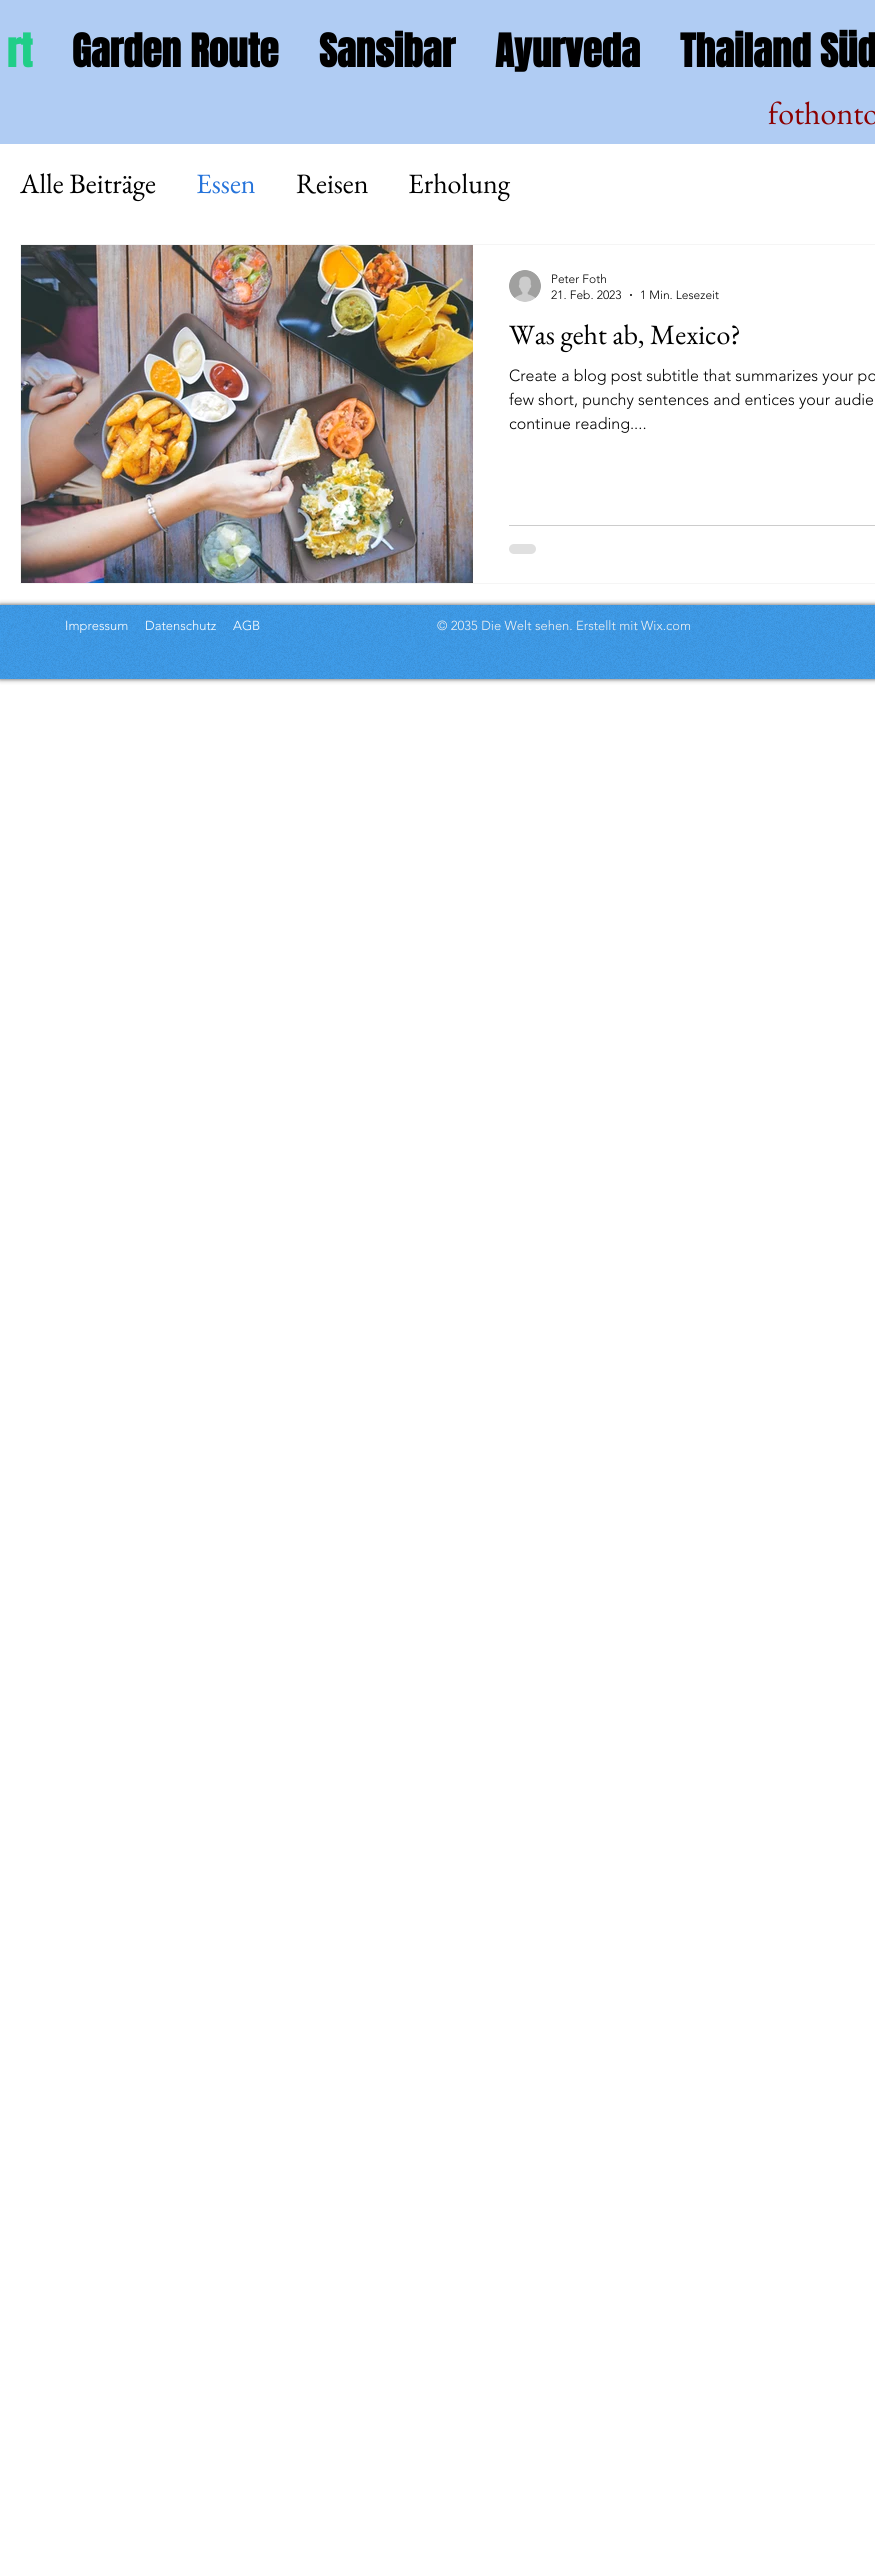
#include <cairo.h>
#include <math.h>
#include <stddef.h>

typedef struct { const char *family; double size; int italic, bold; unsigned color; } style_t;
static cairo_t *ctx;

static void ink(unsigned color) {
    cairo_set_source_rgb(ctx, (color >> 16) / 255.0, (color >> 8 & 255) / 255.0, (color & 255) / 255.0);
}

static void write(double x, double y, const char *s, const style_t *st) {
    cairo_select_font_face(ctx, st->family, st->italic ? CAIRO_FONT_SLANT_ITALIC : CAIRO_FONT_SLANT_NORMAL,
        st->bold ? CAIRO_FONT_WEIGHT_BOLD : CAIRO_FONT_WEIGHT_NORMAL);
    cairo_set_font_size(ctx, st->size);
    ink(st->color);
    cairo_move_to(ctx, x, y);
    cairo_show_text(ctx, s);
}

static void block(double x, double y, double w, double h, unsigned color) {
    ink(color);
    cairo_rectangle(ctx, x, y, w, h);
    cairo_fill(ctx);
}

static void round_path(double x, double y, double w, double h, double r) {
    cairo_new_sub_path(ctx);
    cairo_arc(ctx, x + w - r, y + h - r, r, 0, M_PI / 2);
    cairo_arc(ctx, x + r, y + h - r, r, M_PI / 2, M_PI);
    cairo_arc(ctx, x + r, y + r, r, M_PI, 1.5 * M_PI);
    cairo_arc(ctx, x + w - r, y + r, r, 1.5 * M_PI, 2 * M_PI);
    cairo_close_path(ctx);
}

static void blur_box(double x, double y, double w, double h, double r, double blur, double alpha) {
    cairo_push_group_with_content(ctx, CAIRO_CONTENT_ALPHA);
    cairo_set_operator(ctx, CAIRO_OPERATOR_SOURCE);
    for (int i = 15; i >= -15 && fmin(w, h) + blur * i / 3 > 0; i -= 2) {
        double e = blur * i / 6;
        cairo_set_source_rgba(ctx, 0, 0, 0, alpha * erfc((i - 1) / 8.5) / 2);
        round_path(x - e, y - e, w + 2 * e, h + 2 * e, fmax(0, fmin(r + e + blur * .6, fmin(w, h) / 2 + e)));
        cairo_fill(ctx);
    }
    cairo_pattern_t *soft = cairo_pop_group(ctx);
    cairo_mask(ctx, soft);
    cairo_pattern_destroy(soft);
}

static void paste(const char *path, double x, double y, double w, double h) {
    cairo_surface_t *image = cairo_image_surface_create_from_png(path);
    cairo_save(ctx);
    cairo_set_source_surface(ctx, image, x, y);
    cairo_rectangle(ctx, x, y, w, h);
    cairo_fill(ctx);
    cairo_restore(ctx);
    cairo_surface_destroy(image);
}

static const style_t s1 = {"Anton", 39, 0, 1, 0x20ce88};
static const style_t s2 = {"Anton", 39, 0, 1, 0x000000};
static const style_t s3 = {"EB Garamond", 32, 0, 0, 0x8b0000};
static const style_t s4 = {"EB Garamond", 28, 0, 0, 0x000000};
static const style_t s5 = {"EB Garamond", 28, 0, 0, 0x2573da};
static const style_t s6 = {"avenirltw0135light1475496 Light", 12, 0, 0, 0x000000};
static const style_t s7 = {"avenirltw0135light1475496 Light", 16, 0, 0, 0x000000};
static const style_t s8 = {"avenirltw0135light1475496 Light", 13, 0, 0, 0xffffff};
static const style_t s9 = {"avenirltw0135light1475496 Light", 13, 0, 0, 0xf2f2f2};

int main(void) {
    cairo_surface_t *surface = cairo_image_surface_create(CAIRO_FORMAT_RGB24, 875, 2560);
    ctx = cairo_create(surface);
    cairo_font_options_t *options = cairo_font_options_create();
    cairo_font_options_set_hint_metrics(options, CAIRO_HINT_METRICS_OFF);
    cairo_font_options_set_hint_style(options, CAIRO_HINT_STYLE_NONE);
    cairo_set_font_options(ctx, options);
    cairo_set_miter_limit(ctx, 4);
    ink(0xffffff);
    cairo_paint(ctx);
    block(0, 0, 875, 144, 0xb0ccf3);
    write(7, 67, "rt", &s1);
    write(72, 67, "Garden Route", &s2);
    write(319, 67, "Sansibar", &s2);
    write(495, 67, "Ayurveda", &s2);
    write(680, 67, "Thailand Süd", &s2);
    write(768, 124, "fothonto", &s3);
    write(20, 193, "Alle Beiträge", &s4);
    write(196, 193, "Essen", &s5);
    write(296, 193, "Reisen", &s4);
    write(408, 193, "Erholung", &s4);
    cairo_rectangle(ctx, 20.5, 244.5, 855, 339);
    ink(0xf5f5f5);
    cairo_set_line_width(ctx, 1);
    cairo_stroke(ctx);
    paste("pic1.png", 21, 245, 452, 338);
    paste("pic2.png", 509, 270, 32, 32);
    write(551, 283, "Peter Foth", &s6);
    write(551, 299, "21. Feb. 2023", &s6);
    cairo_new_path(ctx);
    cairo_arc(ctx, 631, 295, 1, 0, 2 * M_PI);
    cairo_fill(ctx);
    write(640, 299, "1 Min. Lesezeit", &s6);
    write(509, 344, "Was geht ab, Mexico?", &s4);
    write(509, 381, "Create a blog post subtitle that summarizes your po", &s7);
    write(509, 405, "few short, punchy sentences and entices your audie", &s7);
    write(509, 429, "continue reading....", &s7);
    block(509, 525, 366, 1, 0xcccccc);
    ink(0xe0e0e0);
    round_path(509, 544, 27, 10, 5);
    cairo_fill(ctx);
    ink(0x000000);
    blur_box(0, 605, 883, 74, 0, 2.5, 0.7);
    block(0, 605, 875, 74, 0x3d9be9);
    paste("pic3.png", 0, 605, 875, 74);
    write(65, 630, "Impressum", &s8);
    write(145, 630, "Datenschutz", &s8);
    write(233, 630, "AGB", &s8);
    write(437, 630, "© 2035 Die Welt sehen. Erstellt mit Wix.com", &s9);
    cairo_surface_write_to_png(surface, "screenshot.png");
    cairo_font_options_destroy(options);
    cairo_destroy(ctx);
    cairo_surface_destroy(surface);
    return 0;
}
